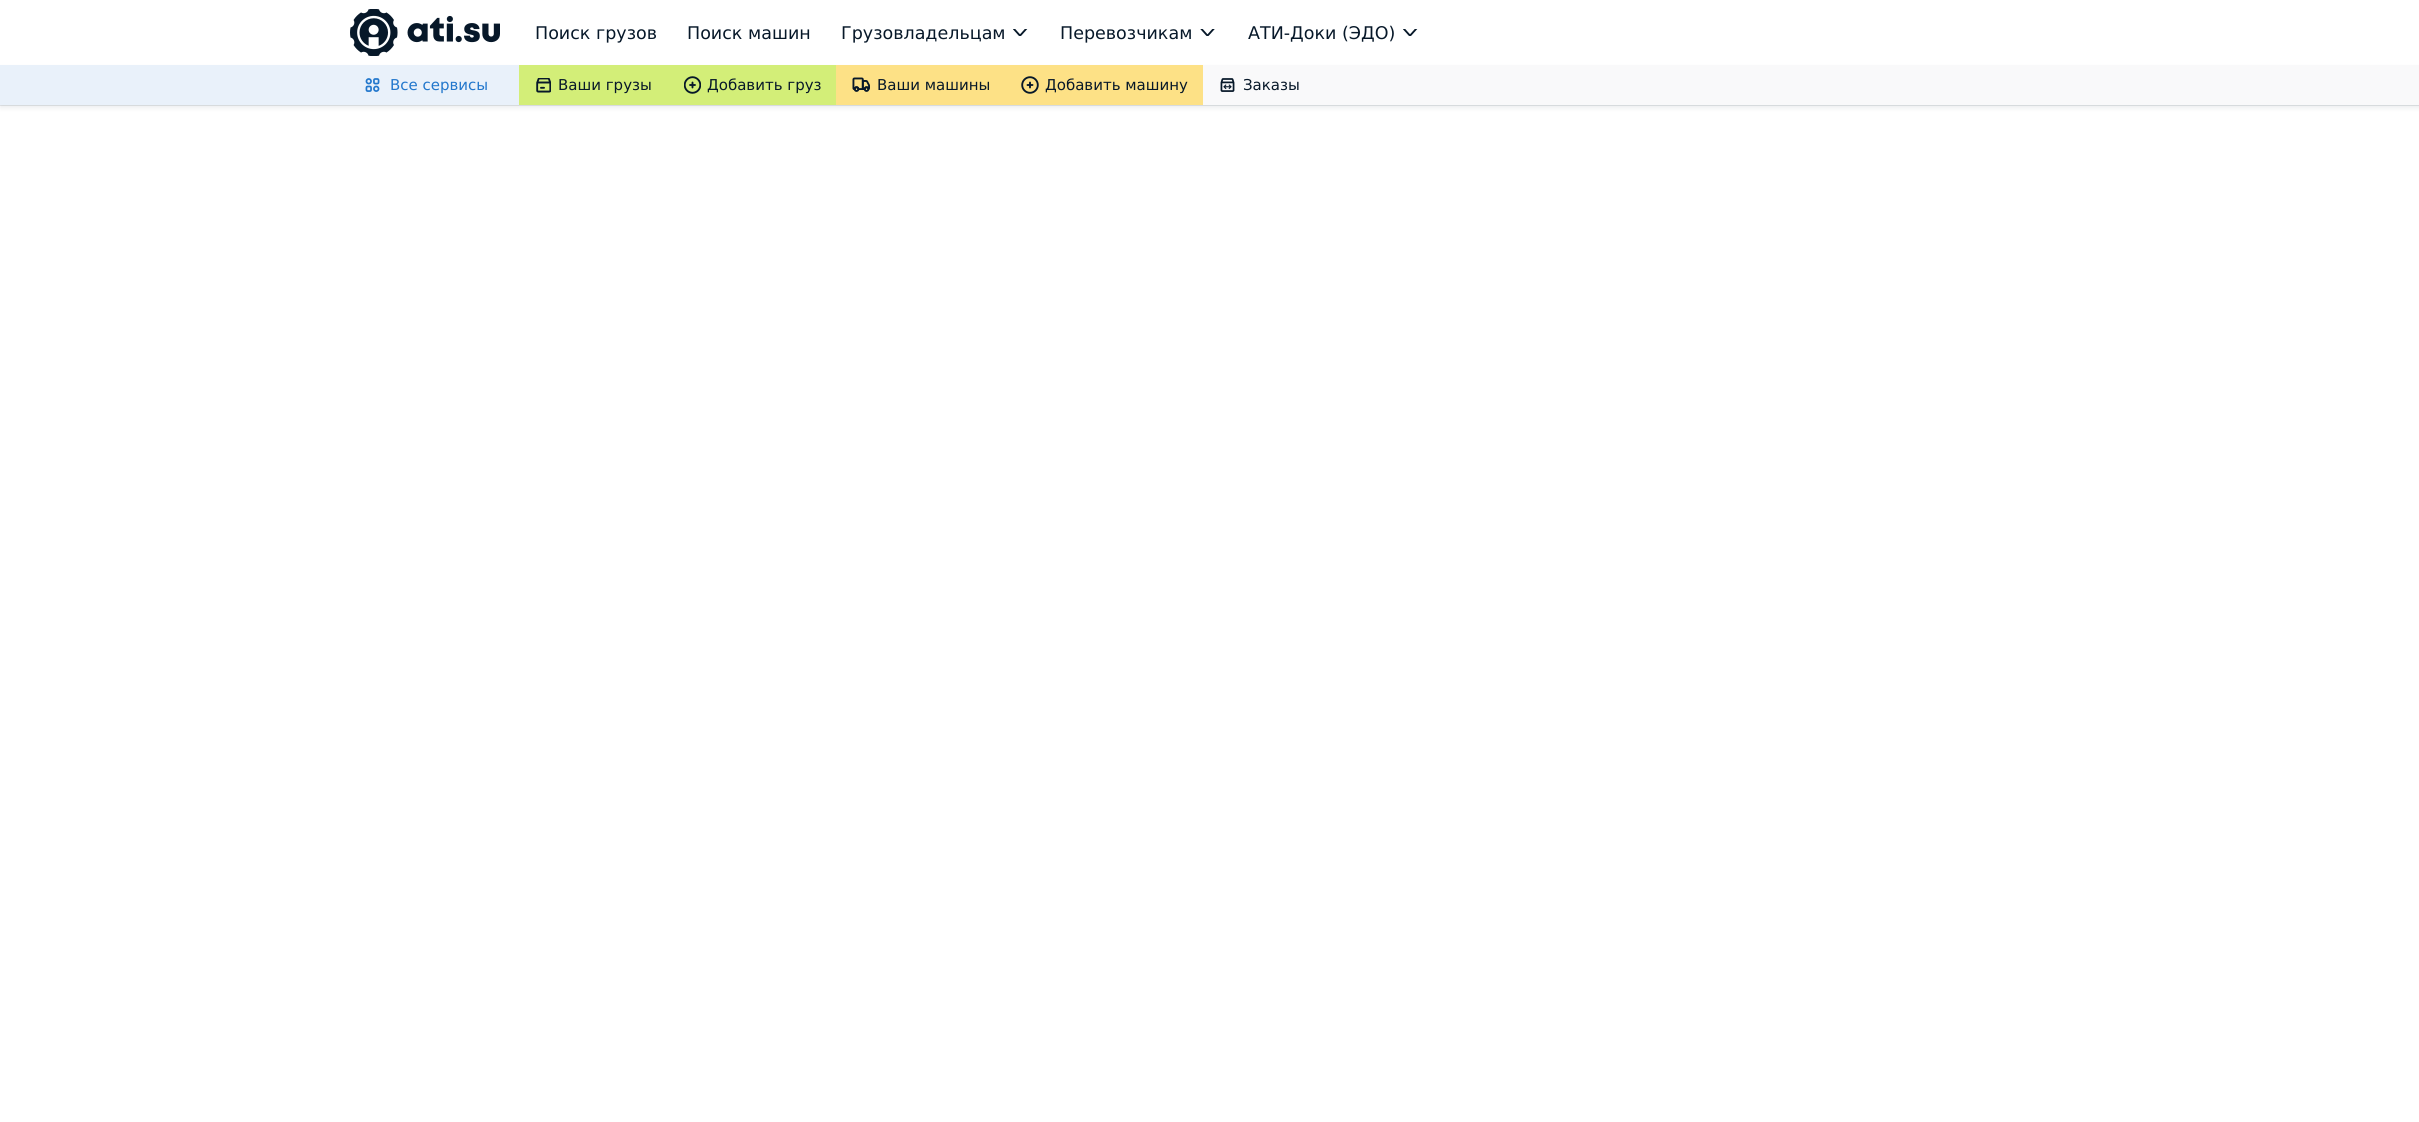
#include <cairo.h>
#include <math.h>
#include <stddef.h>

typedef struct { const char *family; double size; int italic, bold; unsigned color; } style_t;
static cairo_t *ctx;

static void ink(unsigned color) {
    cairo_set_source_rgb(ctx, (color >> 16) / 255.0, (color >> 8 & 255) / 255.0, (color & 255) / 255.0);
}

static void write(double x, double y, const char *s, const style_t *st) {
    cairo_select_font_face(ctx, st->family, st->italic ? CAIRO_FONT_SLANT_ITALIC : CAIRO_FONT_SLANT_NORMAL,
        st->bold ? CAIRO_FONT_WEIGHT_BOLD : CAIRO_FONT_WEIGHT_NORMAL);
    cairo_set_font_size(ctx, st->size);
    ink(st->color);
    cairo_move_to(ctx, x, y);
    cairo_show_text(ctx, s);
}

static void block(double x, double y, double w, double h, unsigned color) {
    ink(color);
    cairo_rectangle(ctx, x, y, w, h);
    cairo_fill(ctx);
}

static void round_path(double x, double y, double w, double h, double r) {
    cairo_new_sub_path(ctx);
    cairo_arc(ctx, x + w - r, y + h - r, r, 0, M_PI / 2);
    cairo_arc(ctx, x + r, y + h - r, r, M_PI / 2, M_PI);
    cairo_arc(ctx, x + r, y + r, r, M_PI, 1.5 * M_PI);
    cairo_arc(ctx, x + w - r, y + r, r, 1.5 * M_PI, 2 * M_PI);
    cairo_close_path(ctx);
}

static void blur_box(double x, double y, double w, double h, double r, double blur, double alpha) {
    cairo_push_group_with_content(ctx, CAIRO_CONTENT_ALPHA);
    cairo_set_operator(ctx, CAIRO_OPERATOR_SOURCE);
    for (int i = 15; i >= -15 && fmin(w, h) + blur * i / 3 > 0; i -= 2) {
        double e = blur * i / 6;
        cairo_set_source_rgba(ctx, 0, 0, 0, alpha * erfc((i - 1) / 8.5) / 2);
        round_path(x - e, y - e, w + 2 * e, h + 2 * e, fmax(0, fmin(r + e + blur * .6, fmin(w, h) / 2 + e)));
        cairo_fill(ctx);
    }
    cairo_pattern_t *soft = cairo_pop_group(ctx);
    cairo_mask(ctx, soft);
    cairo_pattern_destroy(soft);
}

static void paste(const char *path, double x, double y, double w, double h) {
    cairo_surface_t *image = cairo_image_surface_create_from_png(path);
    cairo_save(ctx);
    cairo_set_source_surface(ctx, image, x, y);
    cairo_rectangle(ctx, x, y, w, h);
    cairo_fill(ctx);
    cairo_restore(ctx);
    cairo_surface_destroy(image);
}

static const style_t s1 = {"DejaVu Sans", 17.5, 0, 0, 0x071829};
static const style_t s2 = {"DejaVu Sans", 15, 0, 0, 0x2277cc};
static const style_t s3 = {"DejaVu Sans", 15, 0, 0, 0x071829};

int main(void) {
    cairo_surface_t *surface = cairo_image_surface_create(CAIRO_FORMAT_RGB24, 2419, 1122);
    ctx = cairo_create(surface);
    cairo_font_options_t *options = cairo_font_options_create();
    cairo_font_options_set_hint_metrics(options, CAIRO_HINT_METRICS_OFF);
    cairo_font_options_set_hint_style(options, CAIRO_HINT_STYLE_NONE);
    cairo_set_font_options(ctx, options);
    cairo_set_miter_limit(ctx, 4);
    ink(0xffffff);
    cairo_paint(ctx);
    paste("pic1.png", 350, 9, 150, 47);
    write(535, 39, "Поиск грузов", &s1);
    write(687, 39, "Поиск машин", &s1);
    write(841, 39, "Грузовладельцам", &s1);
    paste("pic2.png", 1013, 29, 15, 7);
    write(1060, 39, "Перевозчикам", &s1);
    paste("pic3.png", 1200, 29, 15, 7);
    write(1248, 39, "АТИ-Доки (ЭДО)", &s1);
    paste("pic2.png", 1403, 29, 15, 7);
    block(0, 105, 2419, 1, 0xe6e8ea);
    ink(0x071829);
    blur_box(0, 68, 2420, 40, 0, 2.5, 0.08);
    block(1203, 65, 1216, 40, 0xf9f9fa);
    block(0, 65, 519, 40, 0xe9f1fa);
    paste("pic4.png", 365, 78, 15, 14);
    write(390, 90, "Все сервисы", &s2);
    block(519, 65, 317, 40, 0xd3ee78);
    paste("pic5.png", 536, 78, 15, 15);
    write(558, 90, "Ваши грузы", &s3);
    paste("pic6.png", 684, 76, 17, 18);
    write(707, 90, "Добавить груз", &s3);
    block(836, 65, 367, 40, 0xfde186);
    paste("pic7.png", 852, 77, 18, 15);
    write(877, 90, "Ваши машины", &s3);
    paste("pic8.png", 1021, 76, 18, 18);
    write(1045, 90, "Добавить машину", &s3);
    paste("pic9.png", 1220, 78, 15, 14);
    write(1243, 90, "Заказы", &s3);
    cairo_surface_write_to_png(surface, "screenshot.png");
    cairo_font_options_destroy(options);
    cairo_destroy(ctx);
    cairo_surface_destroy(surface);
    return 0;
}
